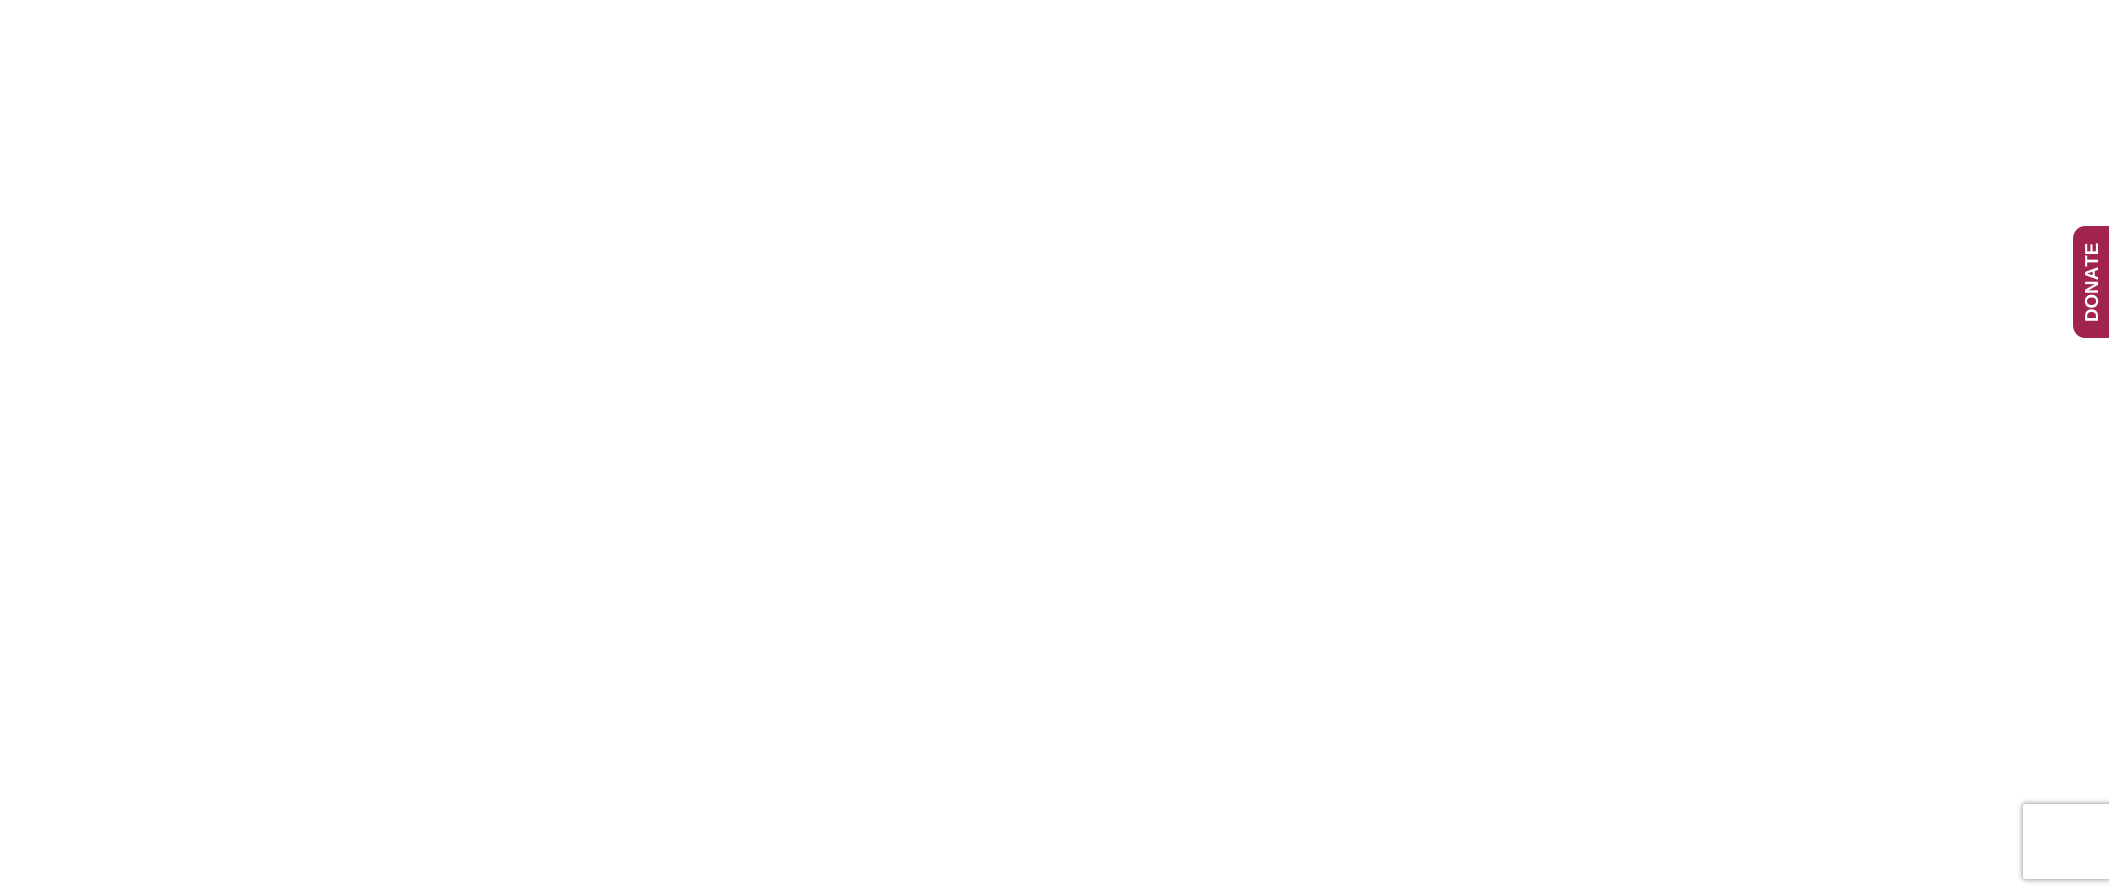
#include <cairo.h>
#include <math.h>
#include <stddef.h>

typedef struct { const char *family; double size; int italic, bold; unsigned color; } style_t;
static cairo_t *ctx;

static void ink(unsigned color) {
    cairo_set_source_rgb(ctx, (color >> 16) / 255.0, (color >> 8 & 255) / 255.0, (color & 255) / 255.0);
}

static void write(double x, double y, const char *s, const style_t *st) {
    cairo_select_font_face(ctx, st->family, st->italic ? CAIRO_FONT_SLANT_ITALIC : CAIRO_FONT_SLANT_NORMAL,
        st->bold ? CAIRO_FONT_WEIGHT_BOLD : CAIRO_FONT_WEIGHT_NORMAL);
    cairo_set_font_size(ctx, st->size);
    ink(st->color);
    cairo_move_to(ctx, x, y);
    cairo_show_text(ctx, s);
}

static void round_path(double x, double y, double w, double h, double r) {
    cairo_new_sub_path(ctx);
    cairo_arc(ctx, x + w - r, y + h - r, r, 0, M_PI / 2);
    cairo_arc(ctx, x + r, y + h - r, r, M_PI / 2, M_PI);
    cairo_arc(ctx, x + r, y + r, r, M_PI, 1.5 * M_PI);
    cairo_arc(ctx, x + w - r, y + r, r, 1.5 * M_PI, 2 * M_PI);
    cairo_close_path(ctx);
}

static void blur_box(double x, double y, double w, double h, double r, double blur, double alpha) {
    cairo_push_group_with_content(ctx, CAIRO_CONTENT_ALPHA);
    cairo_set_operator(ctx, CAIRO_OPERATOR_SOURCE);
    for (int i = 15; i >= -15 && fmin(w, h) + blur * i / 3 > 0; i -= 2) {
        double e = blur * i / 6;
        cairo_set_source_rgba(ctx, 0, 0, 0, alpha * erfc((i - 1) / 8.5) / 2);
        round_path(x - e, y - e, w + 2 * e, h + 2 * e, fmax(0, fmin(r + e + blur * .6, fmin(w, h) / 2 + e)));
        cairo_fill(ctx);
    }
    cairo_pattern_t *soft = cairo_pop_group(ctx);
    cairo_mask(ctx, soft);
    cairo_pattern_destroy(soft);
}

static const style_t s1 = {"Liberation Sans", 18.75, 0, 1, 0xffffff};

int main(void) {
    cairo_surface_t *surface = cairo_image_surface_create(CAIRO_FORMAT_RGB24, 2109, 896);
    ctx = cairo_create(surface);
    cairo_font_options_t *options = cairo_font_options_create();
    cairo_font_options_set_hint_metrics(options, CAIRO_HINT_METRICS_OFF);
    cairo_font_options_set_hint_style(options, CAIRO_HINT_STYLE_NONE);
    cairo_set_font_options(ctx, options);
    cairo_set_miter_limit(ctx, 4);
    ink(0xffffff);
    cairo_paint(ctx);
    ink(0xa0244e);
    cairo_new_path(ctx);
    cairo_move_to(ctx, 2073, 325);
    cairo_line_to(ctx, 2073, 239);
    cairo_curve_to(ctx, 2073, 232, 2078, 226, 2085, 226);
    cairo_line_to(ctx, 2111, 226);
    cairo_line_to(ctx, 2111, 338);
    cairo_line_to(ctx, 2085, 338);
    cairo_curve_to(ctx, 2078, 338, 2073, 332, 2073, 325);
    cairo_close_path(ctx);
    cairo_fill(ctx);
    cairo_save(ctx);
    cairo_translate(ctx, 2098, 322);
    cairo_rotate(ctx, -90 * M_PI / 180);
    write(0, 0, "DONATE", &s1);
    cairo_restore(ctx);
    cairo_save(ctx);
    cairo_set_fill_rule(ctx, CAIRO_FILL_RULE_EVEN_ODD);
    cairo_new_path(ctx);
    cairo_move_to(ctx, 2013, 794);
    cairo_line_to(ctx, 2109, 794);
    cairo_line_to(ctx, 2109, 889);
    cairo_line_to(ctx, 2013, 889);
    cairo_close_path(ctx);
    cairo_move_to(ctx, 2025.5, 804);
    cairo_line_to(ctx, 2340.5, 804);
    cairo_curve_to(ctx, 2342, 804, 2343, 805, 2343, 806.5);
    cairo_line_to(ctx, 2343, 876.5);
    cairo_curve_to(ctx, 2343, 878, 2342, 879, 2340.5, 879);
    cairo_line_to(ctx, 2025.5, 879);
    cairo_curve_to(ctx, 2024, 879, 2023, 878, 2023, 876.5);
    cairo_line_to(ctx, 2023, 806.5);
    cairo_curve_to(ctx, 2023, 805, 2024, 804, 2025.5, 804);
    cairo_close_path(ctx);
    cairo_clip(ctx);
    ink(0x808080);
    blur_box(2023, 804, 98, 75, 2.5, 3, 1);
    cairo_restore(ctx);
    cairo_surface_write_to_png(surface, "screenshot.png");
    cairo_font_options_destroy(options);
    cairo_destroy(ctx);
    cairo_surface_destroy(surface);
    return 0;
}
